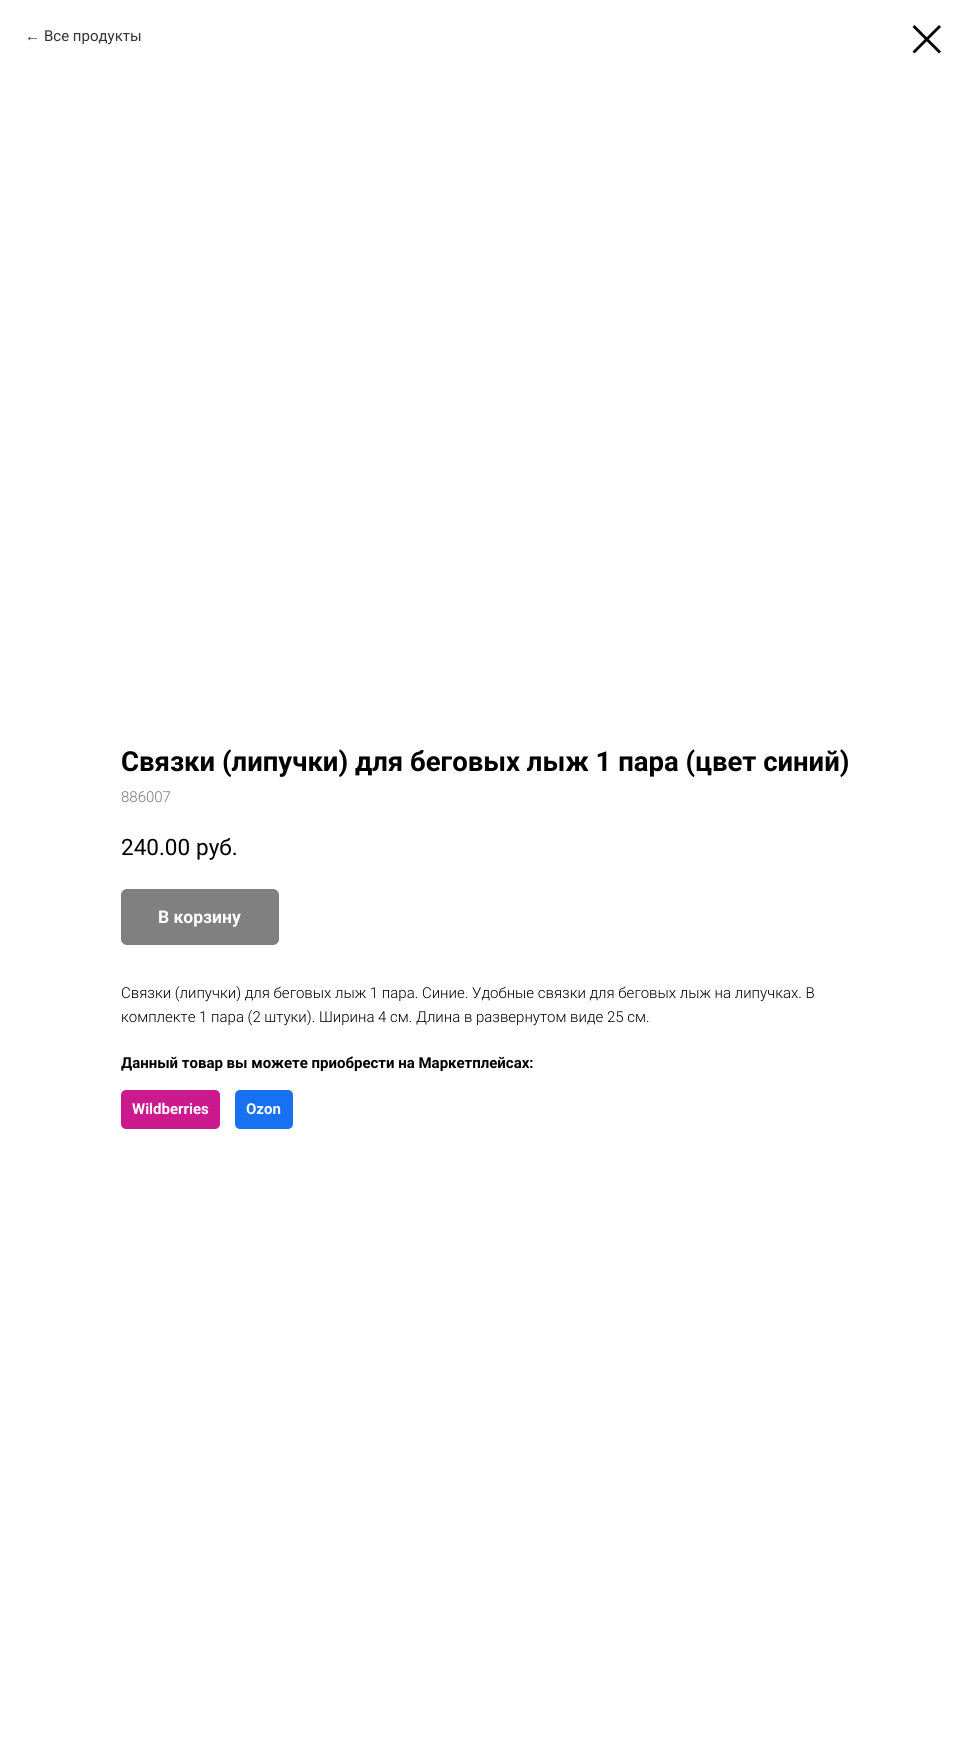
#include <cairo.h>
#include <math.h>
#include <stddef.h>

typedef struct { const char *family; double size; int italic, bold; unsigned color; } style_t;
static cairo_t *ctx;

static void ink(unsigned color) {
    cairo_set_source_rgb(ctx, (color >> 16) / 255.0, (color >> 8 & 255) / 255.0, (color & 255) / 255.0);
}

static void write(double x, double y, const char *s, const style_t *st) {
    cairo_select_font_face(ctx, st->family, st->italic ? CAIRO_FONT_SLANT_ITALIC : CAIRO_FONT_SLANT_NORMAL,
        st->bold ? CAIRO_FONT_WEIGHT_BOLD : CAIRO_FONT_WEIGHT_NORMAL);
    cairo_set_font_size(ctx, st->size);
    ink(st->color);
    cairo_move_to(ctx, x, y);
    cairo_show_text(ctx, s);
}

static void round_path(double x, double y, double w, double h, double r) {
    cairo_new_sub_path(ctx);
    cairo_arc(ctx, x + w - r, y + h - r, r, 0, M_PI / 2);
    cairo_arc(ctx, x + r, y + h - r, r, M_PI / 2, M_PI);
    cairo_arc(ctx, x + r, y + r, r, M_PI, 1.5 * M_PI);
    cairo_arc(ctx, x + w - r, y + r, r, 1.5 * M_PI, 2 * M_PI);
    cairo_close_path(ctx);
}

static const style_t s1 = {"Liberation Sans", 15, 0, 0, 0x333333};
static const style_t s2 = {"Roboto", 15, 0, 0, 0x333333};
static const style_t s3 = {"Roboto", 27.5, 0, 1, 0x000000};
static const style_t s4 = {"Roboto Light", 15, 0, 0, 0x777777};
static const style_t s5 = {"Roboto", 22.5, 0, 0, 0x000000};
static const style_t s6 = {"Roboto", 17.5, 0, 1, 0xffffff};
static const style_t s7 = {"Roboto Light", 15, 0, 0, 0x000000};
static const style_t s8 = {"Roboto", 15, 0, 1, 0x000000};
static const style_t s9 = {"Roboto", 15, 0, 1, 0xffffff};

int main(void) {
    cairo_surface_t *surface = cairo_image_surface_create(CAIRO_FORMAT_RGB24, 966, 1754);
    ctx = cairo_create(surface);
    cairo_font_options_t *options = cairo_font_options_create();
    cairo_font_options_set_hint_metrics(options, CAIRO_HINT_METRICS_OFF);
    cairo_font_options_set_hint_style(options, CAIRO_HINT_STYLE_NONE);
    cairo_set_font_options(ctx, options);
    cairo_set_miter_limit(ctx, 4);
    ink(0xffffff);
    cairo_paint(ctx);
    write(25, 41, "←", &s1);
    write(44, 41, "Все продукты", &s2);
    ink(0x000000);
    cairo_set_fill_rule(ctx, CAIRO_FILL_RULE_EVEN_ODD);
    cairo_new_path(ctx);
    cairo_move_to(ctx, 912.5, 27);
    cairo_line_to(ctx, 914.5, 25);
    cairo_line_to(ctx, 941, 51.5);
    cairo_line_to(ctx, 939, 53.5);
    cairo_close_path(ctx);
    cairo_fill(ctx);
    cairo_new_path(ctx);
    cairo_move_to(ctx, 939, 25);
    cairo_line_to(ctx, 941, 27);
    cairo_line_to(ctx, 914.5, 53.5);
    cairo_line_to(ctx, 912.5, 51.5);
    cairo_close_path(ctx);
    cairo_fill(ctx);
    write(121, 771, "Связки (липучки) для беговых лыж 1 пара (цвет синий)", &s3);
    write(121, 802, "886007", &s4);
    write(121, 855, "240.00", &s5);
    write(196, 855, "руб.", &s5);
    ink(0x808080);
    round_path(121, 889, 158, 56, 6);
    cairo_fill(ctx);
    write(158, 923, "В корзину", &s6);
    write(121, 998, "Связки (липучки) для беговых лыж 1 пара. Синие. Удобные связки для беговых лыж на липучках. В", &s7);
    write(121, 1022, "комплекте 1 пара (2 штуки). Ширина 4 см. Длина в развернутом виде 25 см.", &s7);
    write(121, 1068, "Данный товар вы можете приобрести на Маркетплейсах:", &s8);
    ink(0xca1a8e);
    round_path(121, 1090, 99, 39, 5);
    cairo_fill(ctx);
    write(132, 1114, "Wildberries", &s9);
    ink(0x1771f1);
    round_path(235, 1090, 58, 39, 5);
    cairo_fill(ctx);
    write(246, 1114, "Ozon", &s9);
    cairo_surface_write_to_png(surface, "screenshot.png");
    cairo_font_options_destroy(options);
    cairo_destroy(ctx);
    cairo_surface_destroy(surface);
    return 0;
}
